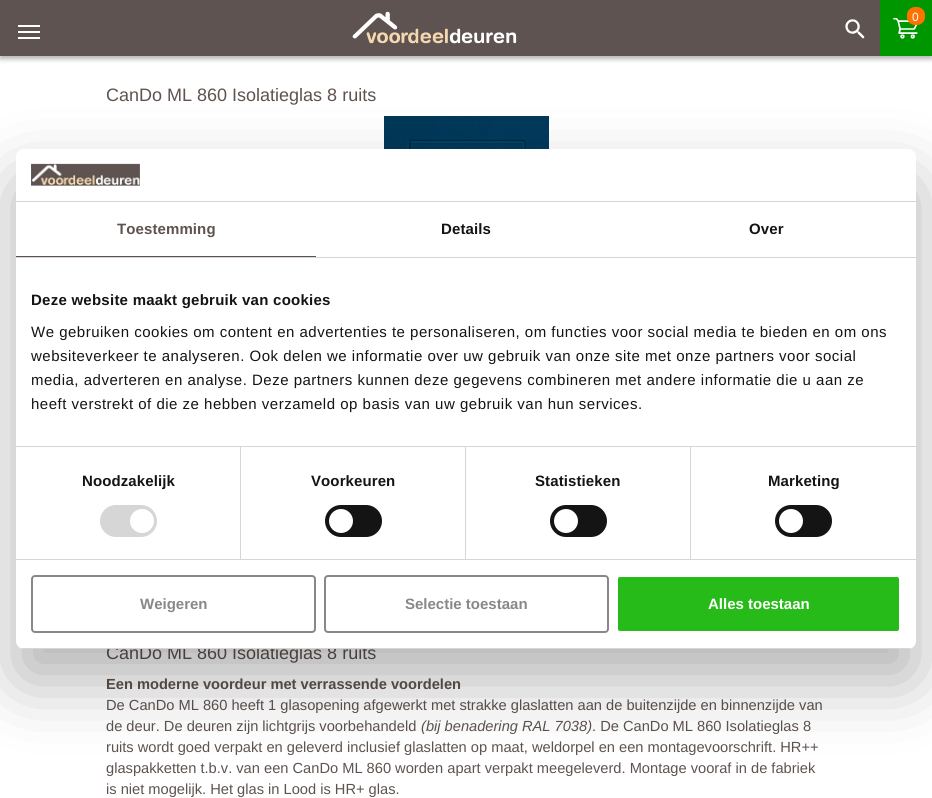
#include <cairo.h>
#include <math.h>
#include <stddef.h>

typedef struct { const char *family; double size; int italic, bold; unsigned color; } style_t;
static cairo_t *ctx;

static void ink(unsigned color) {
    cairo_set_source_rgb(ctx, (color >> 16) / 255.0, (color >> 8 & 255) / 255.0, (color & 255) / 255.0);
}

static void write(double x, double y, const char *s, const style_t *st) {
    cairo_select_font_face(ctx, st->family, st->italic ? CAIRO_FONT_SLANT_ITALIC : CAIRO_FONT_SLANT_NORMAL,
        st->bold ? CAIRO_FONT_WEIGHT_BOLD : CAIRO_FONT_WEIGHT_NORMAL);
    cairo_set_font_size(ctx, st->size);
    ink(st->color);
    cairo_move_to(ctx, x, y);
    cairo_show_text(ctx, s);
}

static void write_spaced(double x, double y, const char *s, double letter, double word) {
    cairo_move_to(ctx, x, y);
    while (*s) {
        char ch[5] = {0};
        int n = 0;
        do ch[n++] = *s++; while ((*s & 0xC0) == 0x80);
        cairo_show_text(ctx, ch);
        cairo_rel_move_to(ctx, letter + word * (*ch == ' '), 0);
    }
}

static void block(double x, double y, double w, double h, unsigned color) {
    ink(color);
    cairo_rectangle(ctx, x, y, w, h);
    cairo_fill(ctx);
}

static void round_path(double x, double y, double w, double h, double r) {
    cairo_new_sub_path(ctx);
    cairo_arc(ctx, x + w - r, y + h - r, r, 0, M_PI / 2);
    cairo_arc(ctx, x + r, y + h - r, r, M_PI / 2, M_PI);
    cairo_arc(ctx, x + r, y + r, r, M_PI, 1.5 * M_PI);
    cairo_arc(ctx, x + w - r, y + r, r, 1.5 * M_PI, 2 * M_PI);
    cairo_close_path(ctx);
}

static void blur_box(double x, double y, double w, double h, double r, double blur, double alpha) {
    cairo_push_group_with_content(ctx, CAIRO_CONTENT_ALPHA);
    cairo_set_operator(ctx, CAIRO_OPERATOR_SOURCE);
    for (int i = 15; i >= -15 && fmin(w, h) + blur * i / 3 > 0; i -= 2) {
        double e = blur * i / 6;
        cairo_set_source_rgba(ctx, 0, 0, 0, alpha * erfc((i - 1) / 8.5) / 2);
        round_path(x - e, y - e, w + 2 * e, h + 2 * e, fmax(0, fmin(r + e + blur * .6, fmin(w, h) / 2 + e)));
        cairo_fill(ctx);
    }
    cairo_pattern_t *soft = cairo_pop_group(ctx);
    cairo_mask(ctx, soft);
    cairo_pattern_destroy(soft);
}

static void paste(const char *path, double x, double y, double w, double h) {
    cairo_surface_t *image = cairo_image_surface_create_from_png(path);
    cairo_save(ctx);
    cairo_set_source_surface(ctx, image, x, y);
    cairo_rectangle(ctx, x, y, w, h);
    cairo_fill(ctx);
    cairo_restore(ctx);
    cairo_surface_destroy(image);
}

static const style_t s1 = {"Liberation Sans", 12, 0, 0, 0xffffff};
static const style_t s2 = {"Liberation Sans", 18, 0, 0, 0x5e534f};
static const style_t s3 = {"Liberation Sans", 14.65, 0, 1, 0x5e534f};
static const style_t s4 = {"Liberation Sans", 14.65, 0, 0, 0x5e534f};
static const style_t s5 = {"Liberation Sans", 14.65, 1, 0, 0x5e534f};
static const style_t s6 = {"Liberation Sans", 15, 0, 1, 0x888888};
static const style_t s7 = {"Liberation Sans", 15, 0, 1, 0xffffff};

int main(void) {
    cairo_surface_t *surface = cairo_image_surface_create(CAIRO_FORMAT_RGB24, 932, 798);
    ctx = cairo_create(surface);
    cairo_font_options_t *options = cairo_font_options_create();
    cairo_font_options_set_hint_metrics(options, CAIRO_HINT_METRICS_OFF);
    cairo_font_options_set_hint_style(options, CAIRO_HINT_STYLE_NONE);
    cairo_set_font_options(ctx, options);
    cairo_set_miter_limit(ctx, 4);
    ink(0xffffff);
    cairo_paint(ctx);
    ink(0x000000);
    blur_box(0, 3, 932, 56, 0, 2.5, 0.3);
    block(0, 0, 880, 56, 0x5e5351);
    paste("pic1.png", 352, 11, 165, 33);
    block(880, 0, 52, 56, 0x009600);
    paste("pic2.png", 893, 17, 25, 22);
    ink(0xff7100);
    round_path(907, 7, 18, 18, 8);
    cairo_fill(ctx);
    write(912, 21, "0", &s1);
    block(18, 31, 22, 2, 0xffffff);
    block(18, 25, 22, 2, 0xffffff);
    block(18, 37, 22, 2, 0xffffff);
    paste("pic3.png", 845, 19, 20, 20);
    write(106, 101, "CanDo ML 860 Isolatieglas 8 ruits", &s2);
    paste("pic4.png", 384, 116, 165, 33);
    write(106, 659, "CanDo ML 860 Isolatieglas 8 ruits", &s2);
    write(106, 689, "Een moderne voordeur met verrassende voordelen", &s3);
    write(106, 710, "De CanDo ML 860 heeft 1 glasopening afgewerkt met strakke glaslatten aan de buitenzijde en binnenzijde van", &s4);
    write(106, 731, "de deur. De deuren zijn lichtgrijs voorbehandeld", &s4);
    write(421, 731, "(bij benadering RAL 7038)", &s5);
    write(592, 731, ". De CanDo ML 860 Isolatieglas 8", &s4);
    write(106, 752, "ruits wordt goed verpakt en geleverd inclusief glaslatten op maat, weldorpel en een montagevoorschrift. HR++", &s4);
    write(106, 773, "glaspakketten t.b.v. van een CanDo ML 860 worden apart verpakt meegeleverd. Montage vooraf in de fabriek", &s4);
    write(106, 794, "is niet mogelijk. Het glas in Lood is HR+ glas.", &s4);
    ink(0x000000);
    blur_box(16, 181, 900, 500, 8, 34, 0.3);
    ink(0xffffff);
    round_path(16, 149, 900, 500, 8);
    cairo_fill(ctx);
    block(16, 201, 900, 1, 0xd6d6d6);
    paste("pic5.png", 31, 163, 109, 23);
    block(16, 257, 900, 1, 0xd6d6d6);
    block(16, 256, 300, 1, 0x5e5351);
    cairo_select_font_face(ctx, "Liberation Sans", CAIRO_FONT_SLANT_NORMAL, CAIRO_FONT_WEIGHT_BOLD);
    cairo_set_font_size(ctx, 15);
    ink(0x5e534f);
    write_spaced(117, 234, "Toestemming", 0.1, 0);
    ink(0x141414);
    write_spaced(441, 234, "Details", 0.1, 0);
    write_spaced(749, 234, "Over", 0.1, 0);
    block(16, 446, 900, 1, 0xd6d6d6);
    ink(0x141414);
    write_spaced(31, 305, "Deze website maakt gebruik van cookies", 0.25, 0);
    cairo_select_font_face(ctx, "Liberation Sans", CAIRO_FONT_SLANT_NORMAL, CAIRO_FONT_WEIGHT_NORMAL);
    write_spaced(31, 337, "We gebruiken cookies om content en advertenties te personaliseren, om functies voor social media te bieden en om ons", 0.5, 0);
    write_spaced(31, 361, "websiteverkeer te analyseren. Ook delen we informatie over uw gebruik van onze site met onze partners voor social", 0.5, 0);
    write_spaced(31, 385, "media, adverteren en analyse. Deze partners kunnen deze gegevens combineren met andere informatie die u aan ze", 0.5, 0);
    write_spaced(31, 409, "heeft verstrekt of die ze hebben verzameld op basis van uw gebruik van hun services.", 0.5, 0);
    block(16, 559, 900, 1, 0xd6d6d6);
    block(240, 447, 1, 112, 0xd6d6d6);
    cairo_select_font_face(ctx, "Liberation Sans", CAIRO_FONT_SLANT_NORMAL, CAIRO_FONT_WEIGHT_BOLD);
    ink(0x141414);
    write_spaced(82, 486, "Noodzakelijk", 0.1, 0);
    ink(0xd6d6d6);
    round_path(100, 505, 57, 32, 16);
    cairo_fill(ctx);
    ink(0xffffff);
    cairo_arc(ctx, 142, 521, 12, 0, 2 * M_PI);
    cairo_fill(ctx);
    block(465, 447, 1, 112, 0xd6d6d6);
    ink(0x141414);
    write_spaced(311, 486, "Voorkeuren", 0.1, 0);
    round_path(325, 505, 57, 32, 16);
    cairo_fill(ctx);
    ink(0xffffff);
    cairo_arc(ctx, 341, 521, 12, 0, 2 * M_PI);
    cairo_fill(ctx);
    block(690, 447, 1, 112, 0xd6d6d6);
    ink(0x141414);
    write_spaced(535, 486, "Statistieken", 0.1, 0);
    round_path(550, 505, 57, 32, 16);
    cairo_fill(ctx);
    ink(0xffffff);
    cairo_arc(ctx, 566, 521, 12, 0, 2 * M_PI);
    cairo_fill(ctx);
    ink(0x141414);
    write_spaced(768, 486, "Marketing", 0.1, 0);
    round_path(775, 505, 57, 32, 16);
    cairo_fill(ctx);
    ink(0xffffff);
    cairo_arc(ctx, 791, 521, 12, 0, 2 * M_PI);
    cairo_fill(ctx);
    cairo_save(ctx);
    round_path(16, 149, 900, 500, 8);
    cairo_clip(ctx);
    block(16, 648, 900, 1, 0xd6d6d6);
    cairo_restore(ctx);
    round_path(32, 576, 283, 56, 3);
    ink(0x888888);
    cairo_stroke(ctx);
    write(140, 609, "Weigeren", &s6);
    round_path(325, 576, 283, 56, 3);
    cairo_stroke(ctx);
    write(405, 609, "Selectie toestaan", &s6);
    ink(0x27bb19);
    round_path(617, 576, 283, 56, 3);
    cairo_fill_preserve(ctx);
    ink(0xffffff);
    cairo_stroke(ctx);
    write(708, 609, "Alles toestaan", &s7);
    cairo_surface_write_to_png(surface, "screenshot.png");
    cairo_font_options_destroy(options);
    cairo_destroy(ctx);
    cairo_surface_destroy(surface);
    return 0;
}
